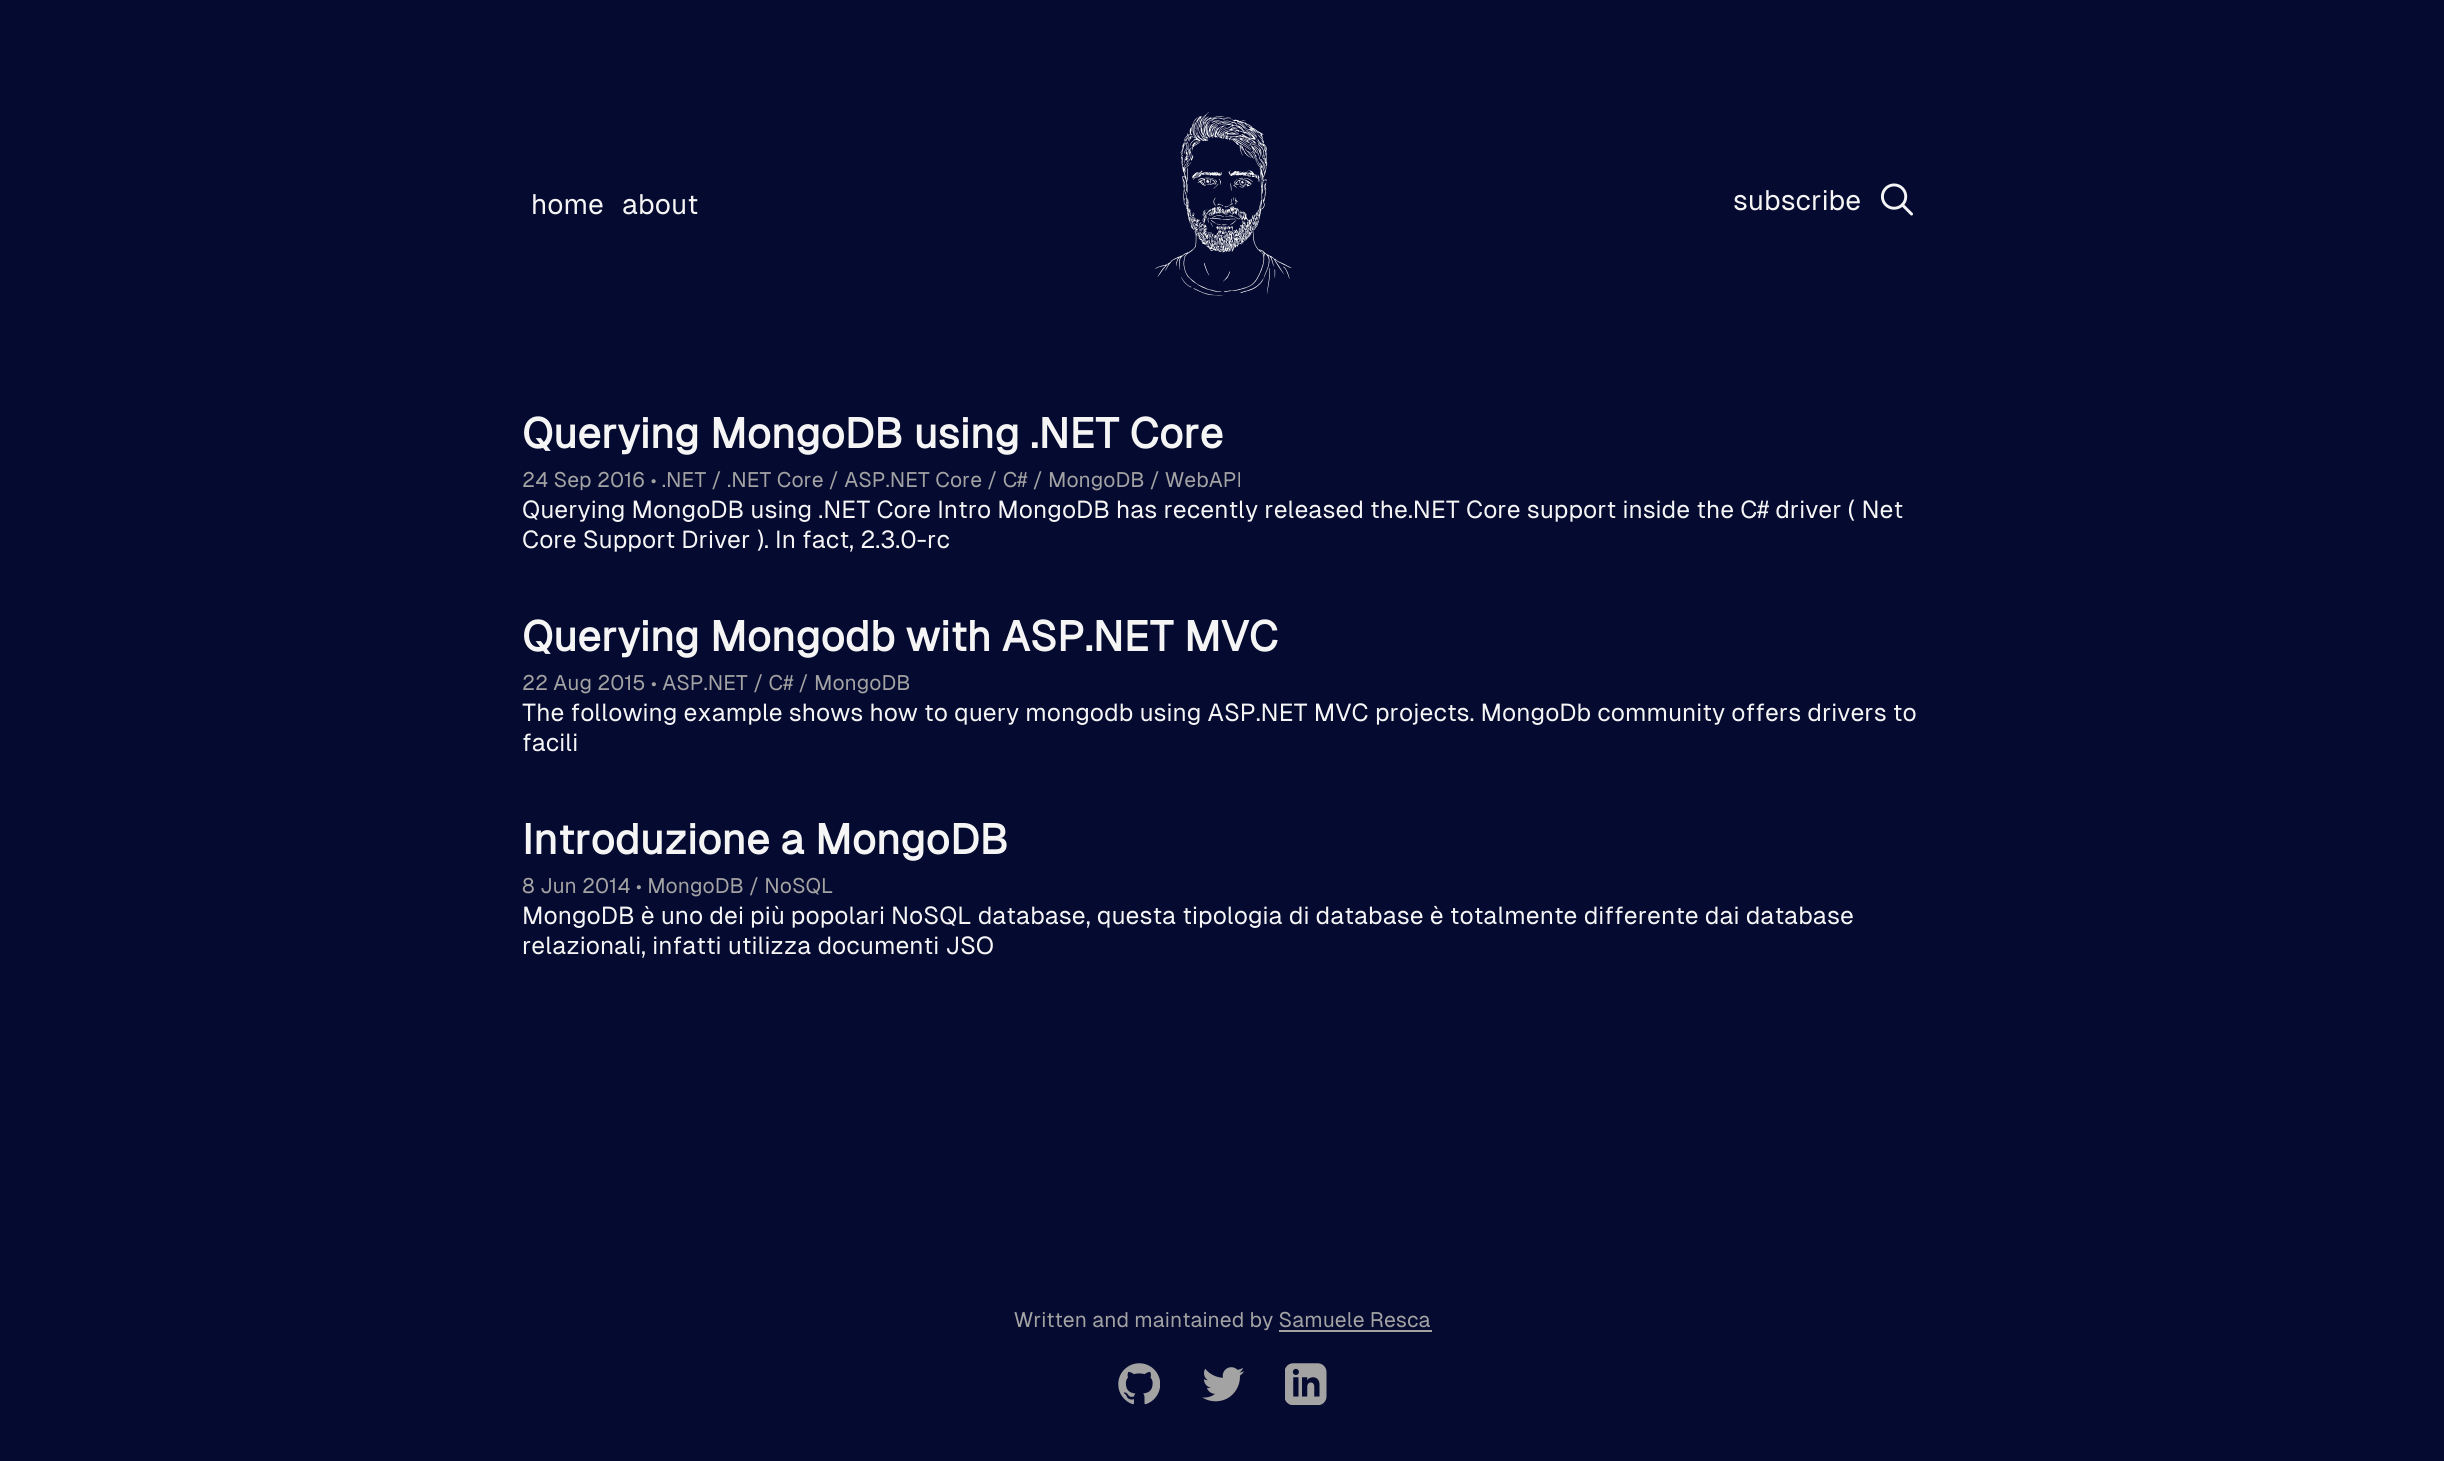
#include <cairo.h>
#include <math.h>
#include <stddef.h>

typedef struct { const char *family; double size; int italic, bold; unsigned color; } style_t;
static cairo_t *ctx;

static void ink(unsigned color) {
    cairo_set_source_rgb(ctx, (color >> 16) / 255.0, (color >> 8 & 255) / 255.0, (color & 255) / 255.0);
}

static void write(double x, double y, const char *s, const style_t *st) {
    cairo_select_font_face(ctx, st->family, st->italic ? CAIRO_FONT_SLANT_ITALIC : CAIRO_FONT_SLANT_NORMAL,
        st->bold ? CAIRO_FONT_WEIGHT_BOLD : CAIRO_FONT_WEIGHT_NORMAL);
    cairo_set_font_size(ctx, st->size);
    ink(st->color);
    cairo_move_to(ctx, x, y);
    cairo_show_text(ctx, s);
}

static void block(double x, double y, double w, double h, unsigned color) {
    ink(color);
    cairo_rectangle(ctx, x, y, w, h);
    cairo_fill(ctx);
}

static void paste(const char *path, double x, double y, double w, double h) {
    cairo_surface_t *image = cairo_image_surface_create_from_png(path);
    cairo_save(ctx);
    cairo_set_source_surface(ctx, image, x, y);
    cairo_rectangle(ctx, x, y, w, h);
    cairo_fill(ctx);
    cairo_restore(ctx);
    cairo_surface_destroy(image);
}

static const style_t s1 = {"Geist", 28, 0, 0, 0xf5f5f5};
static const style_t s2 = {"Geist", 42, 0, 1, 0xf5f5f5};
static const style_t s3 = {"Geist", 21, 0, 0, 0xa3a3a3};
static const style_t s4 = {"Geist", 24.5, 0, 0, 0xf5f5f5};

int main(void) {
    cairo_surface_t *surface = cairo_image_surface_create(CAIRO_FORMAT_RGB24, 2444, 1461);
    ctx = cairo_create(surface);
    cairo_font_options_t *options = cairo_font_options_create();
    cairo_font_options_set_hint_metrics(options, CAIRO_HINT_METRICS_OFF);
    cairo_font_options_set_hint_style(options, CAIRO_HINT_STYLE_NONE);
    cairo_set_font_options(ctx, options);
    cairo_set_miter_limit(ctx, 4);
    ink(0x050a30);
    cairo_paint(ctx);
    write(531, 214, "home", &s1);
    write(622, 214, "about", &s1);
    paste("pic1.png", 1155, 112, 137, 184);
    write(1733, 210, "subscribe", &s1);
    paste("pic2.png", 1881, 183, 32, 33);
    write(522, 448, "Querying MongoDB using .NET Core", &s2);
    write(522, 487, "24 Sep 2016 • .NET / .NET Core / ASP.NET Core / C# / MongoDB / WebAPI", &s3);
    write(522, 518, "Querying MongoDB using .NET Core Intro MongoDB has recently released the.NET Core support inside the C# driver ( Net", &s4);
    write(522, 548, "Core Support Driver ). In fact, 2.3.0-rc", &s4);
    write(522, 651, "Querying Mongodb with ASP.NET MVC", &s2);
    write(522, 690, "22 Aug 2015 • ASP.NET / C# / MongoDB", &s3);
    write(522, 721, "The following example shows how to query mongodb using ASP.NET MVC projects. MongoDb community offers drivers to", &s4);
    write(522, 751, "facili", &s4);
    write(522, 854, "Introduzione a MongoDB", &s2);
    write(522, 893, "8 Jun 2014 • MongoDB / NoSQL", &s3);
    write(522, 924, "MongoDB è uno dei più popolari NoSQL database, questa tipologia di database è totalmente differente dai database", &s4);
    write(522, 954, "relazionali, infatti utilizza documenti JSO", &s4);
    write(1014, 1327, "Written and maintained by Samuele Resca", &s3);
    block(1279, 1330, 153, 2, 0xa3a3a3);
    paste("pic3.png", 1118, 1363, 42, 42);
    paste("pic4.png", 1202, 1367, 42, 35);
    paste("pic5.png", 1285, 1363, 42, 42);
    cairo_surface_write_to_png(surface, "screenshot.png");
    cairo_font_options_destroy(options);
    cairo_destroy(ctx);
    cairo_surface_destroy(surface);
    return 0;
}
